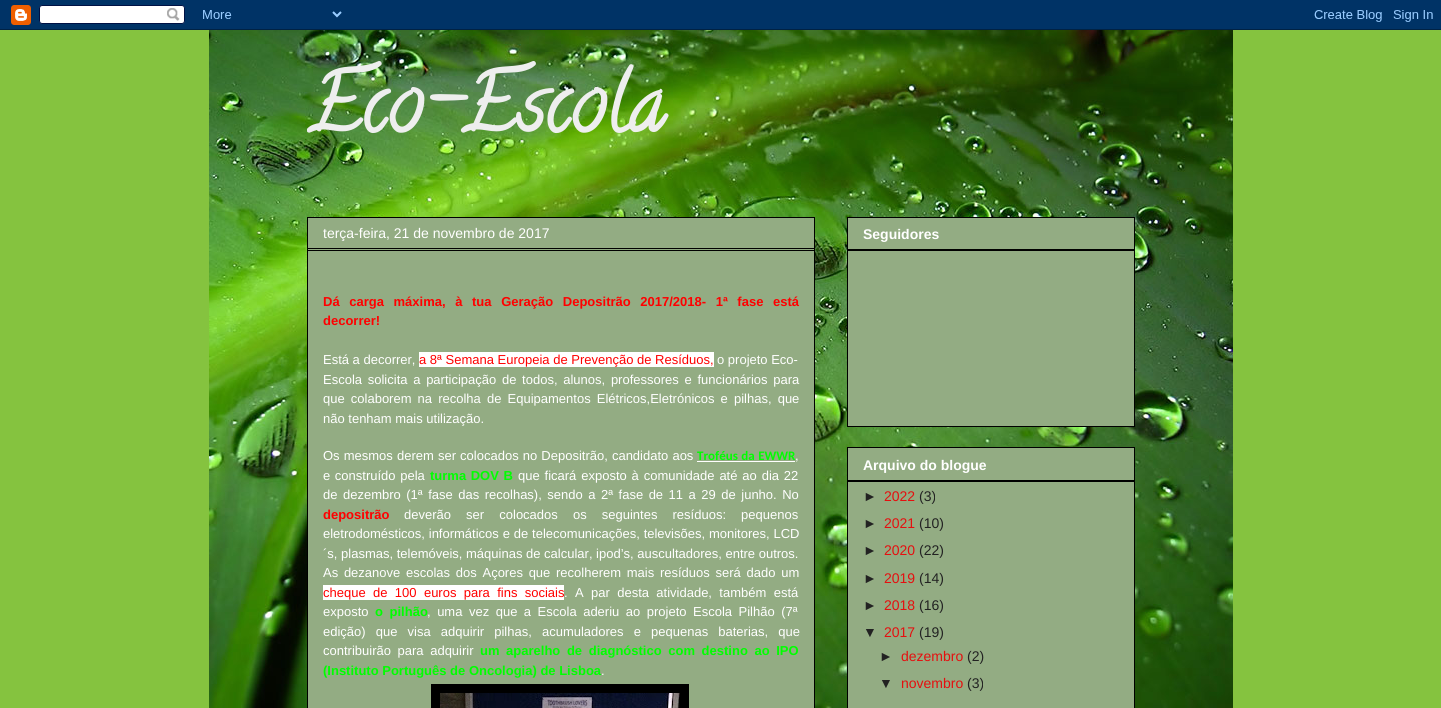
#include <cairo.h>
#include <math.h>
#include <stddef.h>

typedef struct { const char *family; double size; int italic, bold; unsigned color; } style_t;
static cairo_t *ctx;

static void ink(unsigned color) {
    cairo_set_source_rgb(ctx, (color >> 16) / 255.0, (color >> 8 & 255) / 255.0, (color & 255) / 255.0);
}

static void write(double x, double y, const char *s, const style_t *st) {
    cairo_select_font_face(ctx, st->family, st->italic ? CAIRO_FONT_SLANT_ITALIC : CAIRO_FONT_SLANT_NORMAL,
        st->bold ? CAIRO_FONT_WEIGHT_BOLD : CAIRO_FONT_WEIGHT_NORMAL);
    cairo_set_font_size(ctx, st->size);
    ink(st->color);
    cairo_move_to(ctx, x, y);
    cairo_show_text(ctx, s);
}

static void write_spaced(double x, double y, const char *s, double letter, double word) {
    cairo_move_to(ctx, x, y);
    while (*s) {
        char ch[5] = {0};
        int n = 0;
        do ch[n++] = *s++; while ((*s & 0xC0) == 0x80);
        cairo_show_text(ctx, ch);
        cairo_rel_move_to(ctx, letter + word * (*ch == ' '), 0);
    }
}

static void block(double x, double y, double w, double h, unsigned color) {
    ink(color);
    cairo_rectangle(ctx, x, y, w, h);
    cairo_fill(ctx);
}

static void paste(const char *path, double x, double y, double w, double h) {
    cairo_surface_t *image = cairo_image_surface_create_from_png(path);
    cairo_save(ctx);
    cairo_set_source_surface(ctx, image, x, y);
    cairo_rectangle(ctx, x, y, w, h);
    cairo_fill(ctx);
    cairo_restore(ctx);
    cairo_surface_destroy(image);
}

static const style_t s1 = {"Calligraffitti", 80, 0, 1, 0xeeeeee};
static const style_t s2 = {"Liberation Sans", 14, 0, 0, 0xffffff};
static const style_t s3 = {"Liberation Sans", 13, 0, 1, 0xff0000};
static const style_t s4 = {"Liberation Sans", 13, 0, 0, 0xffffff};
static const style_t s5 = {"Liberation Sans", 13, 0, 0, 0xff0000};
static const style_t s6 = {"Liberation Sans", 13, 0, 1, 0x00ff00};
static const style_t s7 = {"Liberation Sans", 14, 0, 1, 0xffffff};
static const style_t s8 = {"Liberation Sans", 14, 0, 0, 0x222222};
static const style_t s9 = {"Liberation Sans", 14, 0, 0, 0xe50f0f};

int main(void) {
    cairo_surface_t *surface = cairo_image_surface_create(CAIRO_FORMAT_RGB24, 1441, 708);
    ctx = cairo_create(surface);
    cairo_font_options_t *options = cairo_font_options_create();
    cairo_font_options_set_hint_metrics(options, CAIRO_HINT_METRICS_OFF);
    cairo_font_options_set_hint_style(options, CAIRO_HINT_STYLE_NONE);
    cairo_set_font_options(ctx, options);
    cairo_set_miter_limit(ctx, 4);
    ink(0x85c33f);
    cairo_paint(ctx);
    paste("pic1.png", 209, 30, 1024, 678);
    paste("pic2.png", 0, 0, 1441, 30);
    cairo_save(ctx);
    cairo_rectangle(ctx, 307, 30, 828, 157);
    cairo_clip(ctx);
    write(307, 129, "Eco-Escola", &s1);
    cairo_restore(ctx);
    ink(0x93ac83);
    cairo_rectangle(ctx, 307.5, 217.5, 507, 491);
    cairo_fill_preserve(ctx);
    ink(0x000000);
    cairo_set_line_width(ctx, 1);
    cairo_stroke(ctx);
    block(308, 248, 506, 1, 0x000000);
    write(323, 238, "terça-feira, 21 de novembro de 2017", &s2);
    block(308, 250, 506, 1, 0x000000);
    cairo_select_font_face(ctx, "Liberation Sans", CAIRO_FONT_SLANT_NORMAL, CAIRO_FONT_WEIGHT_BOLD);
    cairo_set_font_size(ctx, 13);
    ink(0xff0000);
    write_spaced(323, 306, "Dá carga máxima, à tua Geração Depositrão 2017/2018- 1ª fase está", 0, 6);
    write(323, 325, "decorrer!", &s3);
    write(323, 364, "Está a decorrer,", &s4);
    block(419, 352, 295, 15, 0xffffff);
    write(419, 364, "a 8ª Semana Europeia de Prevenção de Resíduos,", &s5);
    write(717, 364, "o projeto Eco-", &s4);
    write_spaced(323, 384, "Escola solicita a participação de todos, alunos, professores e funcionários para", 0, 2.1);
    write_spaced(323, 403, "que colaborem na recolha de Equipamentos Elétricos,Eletrónicos e pilhas, que", 0, 2.5);
    write(323, 423, "não tenham mais utilização.", &s4);
    write_spaced(323, 460, "Os mesmos derem ser colocados no Depositrão, candidato aos", 0, 0.5);
    cairo_select_font_face(ctx, "Carlito", CAIRO_FONT_SLANT_NORMAL, CAIRO_FONT_WEIGHT_BOLD);
    ink(0x00ff00);
    write_spaced(697, 460, "Troféus da EWWR", 0, 0.5);
    block(697, 461, 98, 1, 0xffffff);
    write(795, 460, ",", &s4);
    write_spaced(323, 480, "e construído pela", 0, 1);
    cairo_select_font_face(ctx, "Liberation Sans", CAIRO_FONT_SLANT_NORMAL, CAIRO_FONT_WEIGHT_BOLD);
    ink(0x00ff00);
    write_spaced(430, 480, "turma DOV B", 0, 1);
    cairo_select_font_face(ctx, "Liberation Sans", CAIRO_FONT_SLANT_NORMAL, CAIRO_FONT_WEIGHT_NORMAL);
    ink(0xffffff);
    write_spaced(518, 480, "que ficará exposto à comunidade até ao dia 22", 0, 1.25);
    write_spaced(323, 499, "de dezembro (1ª fase das recolhas), sendo a 2ª fase de 11 a 29 de junho. No", 0, 1.9);
    write(323, 519, "depositrão", &s3);
    cairo_select_font_face(ctx, "Liberation Sans", CAIRO_FONT_SLANT_NORMAL, CAIRO_FONT_WEIGHT_NORMAL);
    ink(0xffffff);
    write_spaced(404, 519, "deverão ser colocados os seguintes resíduos: pequenos", 0, 11.5);
    write_spaced(323, 538, "eletrodomésticos, informáticos e de telecomunicações, televisões, monitores, LCD", 0, 0.25);
    write(323, 558, "´s, plasmas, telemóveis, máquinas de calcular, ipod’s, auscultadores, entre outros.", &s4);
    write_spaced(323, 577, "As dezanove escolas dos Açores que recolherem mais resíduos será dado um", 0, 2.1);
    block(323, 585, 241, 15, 0xffffff);
    ink(0xff0000);
    write_spaced(323, 597, "cheque de 100 euros para fins sociais", 0, 3.75);
    ink(0xffffff);
    write_spaced(564, 597, ". A par desta atividade, também está", 0, 3.75);
    write(323, 616, "exposto", &s4);
    cairo_select_font_face(ctx, "Liberation Sans", CAIRO_FONT_SLANT_NORMAL, CAIRO_FONT_WEIGHT_BOLD);
    ink(0x00ff00);
    write_spaced(375, 616, "o pilhão", 0, 3);
    cairo_select_font_face(ctx, "Liberation Sans", CAIRO_FONT_SLANT_NORMAL, CAIRO_FONT_WEIGHT_NORMAL);
    ink(0xffffff);
    write_spaced(427, 616, ", uma vez que a Escola aderiu ao projeto Escola Pilhão (7ª", 0, 2.9);
    write_spaced(323, 636, "edição) que visa adquirir pilhas, acumuladores e pequenas baterias, que", 0, 6.5);
    write_spaced(323, 655, "contribuirão para adquirir", 0, 3);
    cairo_select_font_face(ctx, "Liberation Sans", CAIRO_FONT_SLANT_NORMAL, CAIRO_FONT_WEIGHT_BOLD);
    ink(0x00ff00);
    write_spaced(480, 655, "um aparelho de diagnóstico com destino ao IPO", 0, 3);
    write(323, 675, "(Instituto Português de Oncologia) de Lisboa", &s6);
    write(601, 675, ".", &s4);
    block(431, 684, 258, 24, 0x000000);
    paste("pic3.png", 440, 693, 240, 15);
    ink(0x93ac83);
    cairo_rectangle(ctx, 847.5, 217.5, 287, 209);
    cairo_fill_preserve(ctx);
    ink(0x000000);
    cairo_stroke(ctx);
    write(863, 239, "Seguidores", &s7);
    block(848, 249, 286, 2, 0x000000);
    ink(0x93ac83);
    cairo_rectangle(ctx, 847.5, 447.5, 287, 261);
    cairo_fill_preserve(ctx);
    ink(0x000000);
    cairo_stroke(ctx);
    write(863, 470, "Arquivo do blogue", &s7);
    block(848, 480, 286, 2, 0x000000);
    write(863, 501, "►", &s8);
    write(884, 501, "2022", &s9);
    write(919, 501, "(3)", &s8);
    write(863, 528, "►", &s8);
    write(884, 528, "2021", &s9);
    write(919, 528, "(10)", &s8);
    write(863, 555, "►", &s8);
    write(884, 555, "2020", &s9);
    write(919, 555, "(22)", &s8);
    write(863, 583, "►", &s8);
    write(884, 583, "2019", &s9);
    write(919, 583, "(14)", &s8);
    write(863, 610, "►", &s8);
    write(884, 610, "2018", &s9);
    write(919, 610, "(16)", &s8);
    write(863, 637, "▼", &s8);
    write(884, 637, "2017", &s9);
    write(919, 637, "(19)", &s8);
    write(879, 661, "►", &s8);
    write(901, 661, "dezembro", &s9);
    write(967, 661, "(2)", &s8);
    write(879, 688, "▼", &s8);
    write(901, 688, "novembro", &s9);
    write(967, 688, "(3)", &s8);
    cairo_surface_write_to_png(surface, "screenshot.png");
    cairo_font_options_destroy(options);
    cairo_destroy(ctx);
    cairo_surface_destroy(surface);
    return 0;
}
